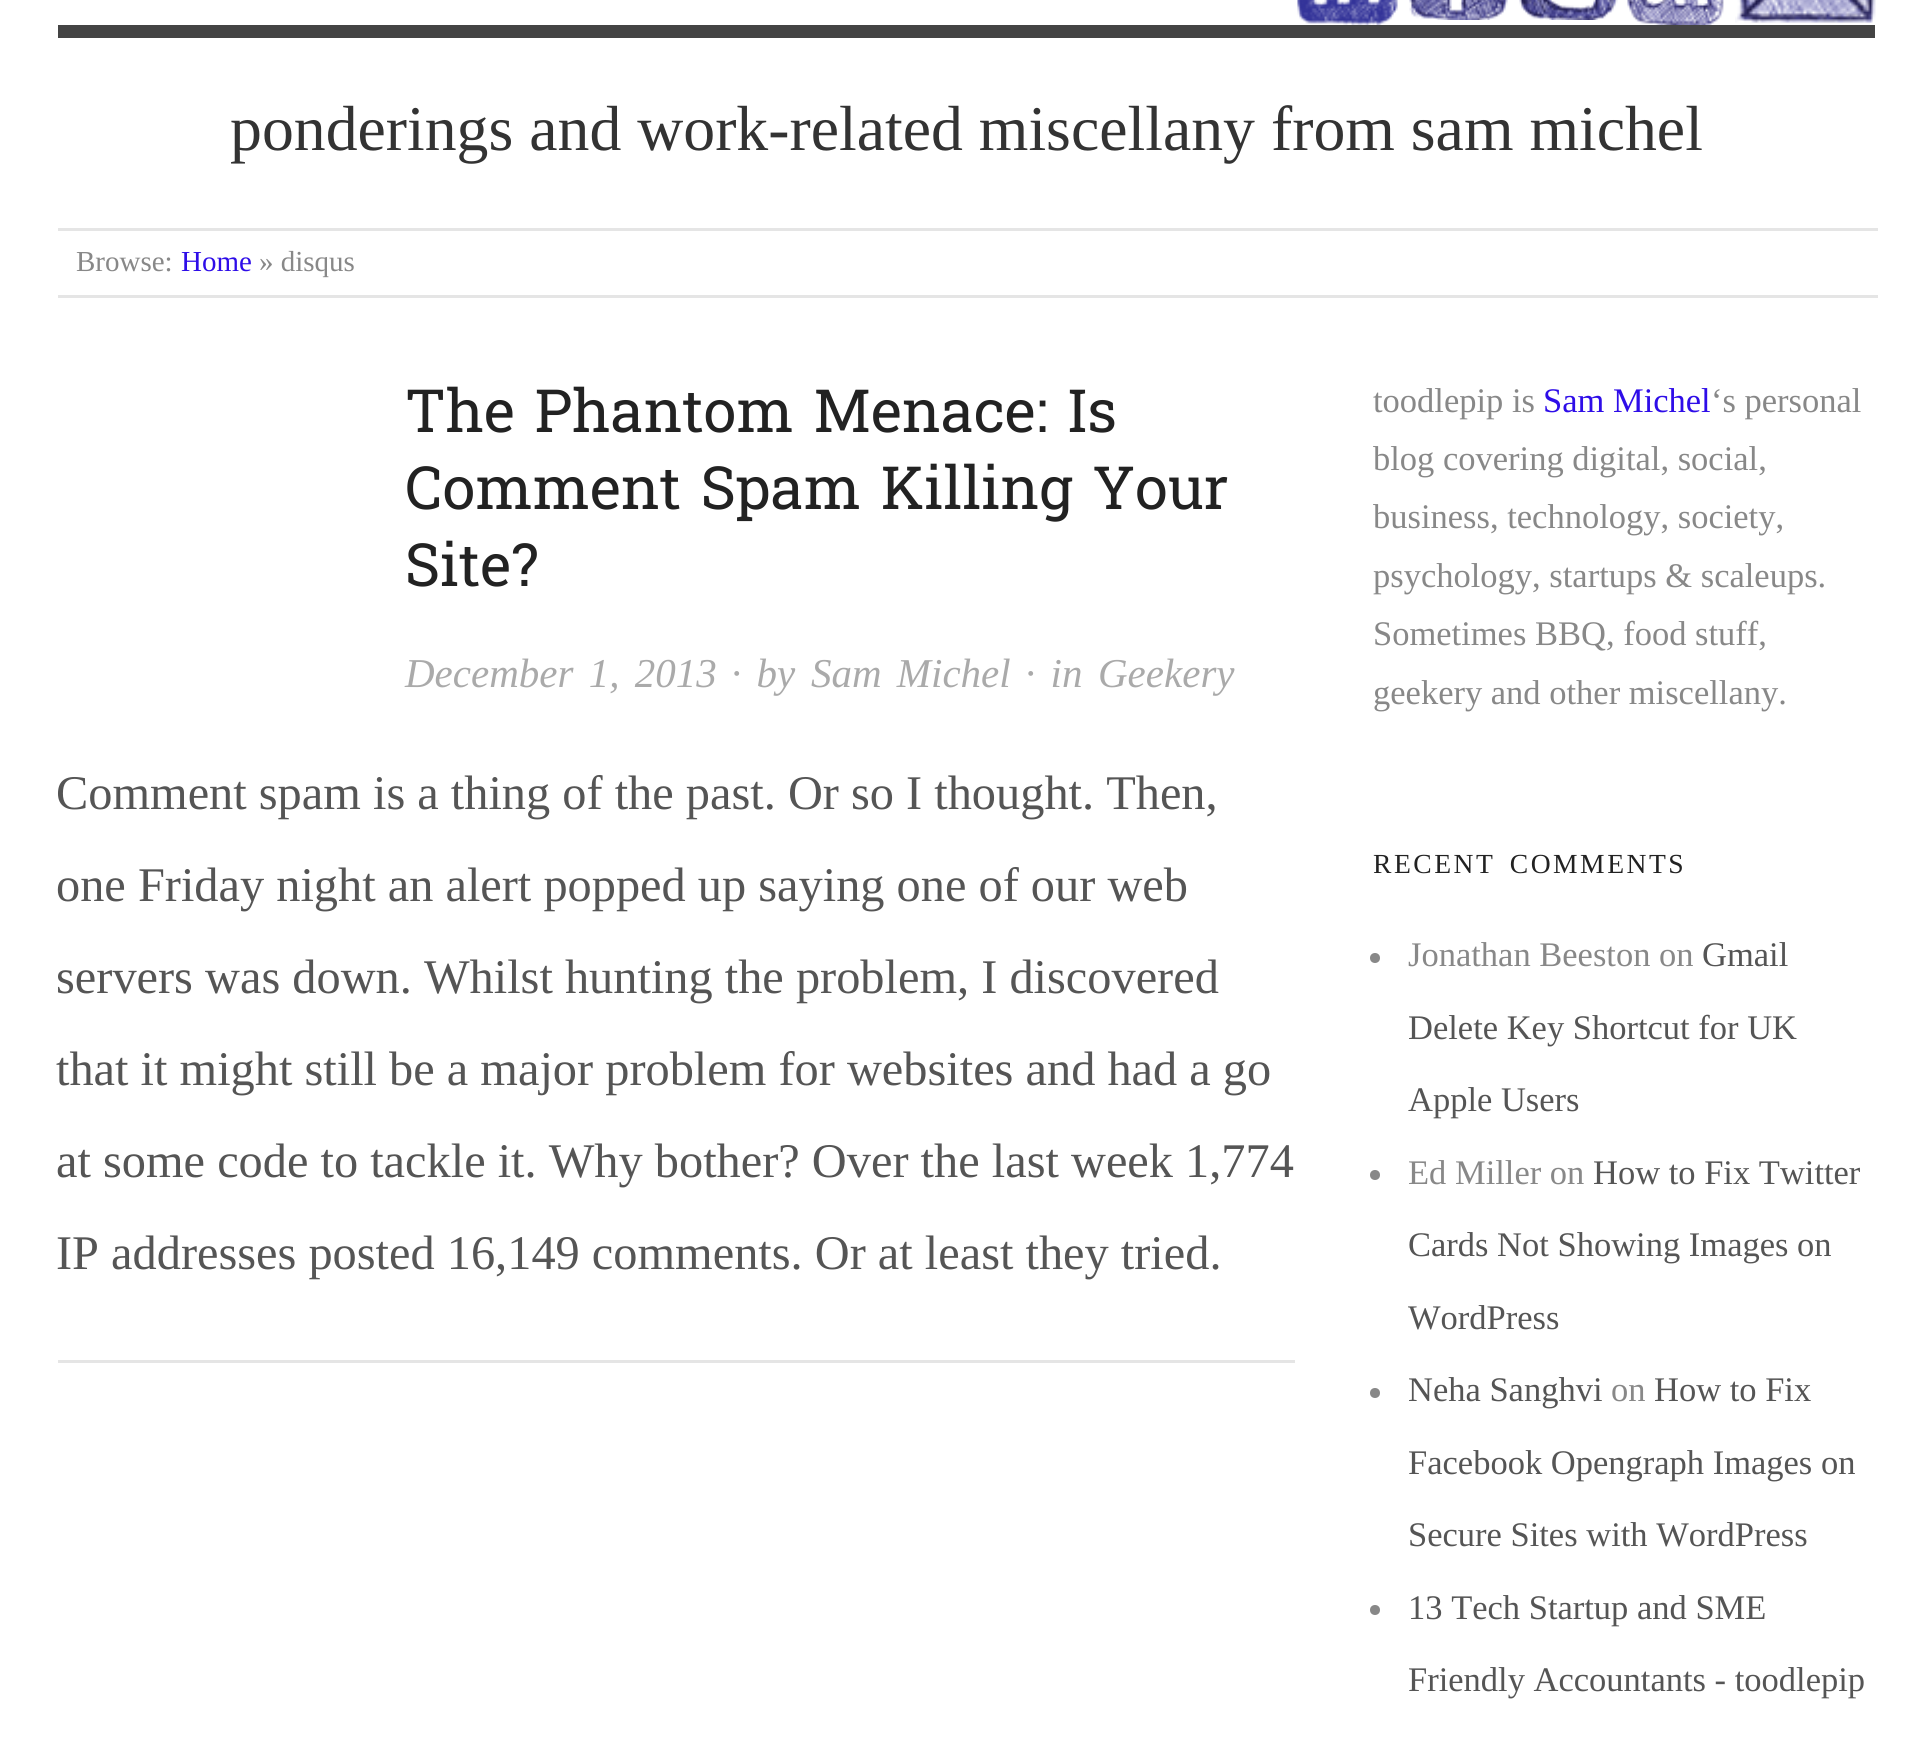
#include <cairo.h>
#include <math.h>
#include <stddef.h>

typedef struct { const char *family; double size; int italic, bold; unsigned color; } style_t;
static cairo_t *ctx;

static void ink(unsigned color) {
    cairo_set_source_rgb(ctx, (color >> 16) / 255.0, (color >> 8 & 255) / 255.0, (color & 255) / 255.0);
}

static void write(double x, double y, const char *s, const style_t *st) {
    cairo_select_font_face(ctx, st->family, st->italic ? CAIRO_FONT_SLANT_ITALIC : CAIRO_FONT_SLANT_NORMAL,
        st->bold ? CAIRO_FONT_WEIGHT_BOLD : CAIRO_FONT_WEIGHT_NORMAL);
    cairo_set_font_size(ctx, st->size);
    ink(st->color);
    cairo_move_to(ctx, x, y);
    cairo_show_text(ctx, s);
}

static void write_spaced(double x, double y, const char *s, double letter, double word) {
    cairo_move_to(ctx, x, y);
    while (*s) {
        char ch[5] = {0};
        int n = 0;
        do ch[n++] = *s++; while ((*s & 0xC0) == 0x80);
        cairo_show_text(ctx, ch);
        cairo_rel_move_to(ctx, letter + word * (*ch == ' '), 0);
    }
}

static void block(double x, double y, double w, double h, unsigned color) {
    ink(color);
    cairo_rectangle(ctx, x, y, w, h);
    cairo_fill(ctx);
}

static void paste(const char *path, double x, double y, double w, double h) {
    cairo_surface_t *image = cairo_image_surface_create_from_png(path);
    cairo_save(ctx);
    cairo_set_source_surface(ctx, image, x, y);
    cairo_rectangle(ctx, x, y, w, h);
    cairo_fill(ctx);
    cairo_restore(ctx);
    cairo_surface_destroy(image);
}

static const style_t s1 = {"Liberation Serif", 63.75, 0, 0, 0x333333};
static const style_t s2 = {"Liberation Serif", 29, 0, 0, 0x888888};
static const style_t s3 = {"Liberation Serif", 29, 0, 0, 0x2e0de8};
static const style_t s4 = {"Roboto Slab", 59.5, 0, 0, 0x222222};
static const style_t s5 = {"Liberation Serif", 41, 1, 0, 0xaaaaaa};
static const style_t s6 = {"Liberation Serif", 48.35, 0, 0, 0x555555};
static const style_t s7 = {"Liberation Serif", 34.5, 0, 0, 0x888888};
static const style_t s8 = {"Liberation Serif", 34.5, 0, 0, 0x2e0de8};
static const style_t s9 = {"Liberation Serif", 34.5, 0, 0, 0x555555};

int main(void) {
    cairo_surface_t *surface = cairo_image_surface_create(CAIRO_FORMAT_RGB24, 1932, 1742);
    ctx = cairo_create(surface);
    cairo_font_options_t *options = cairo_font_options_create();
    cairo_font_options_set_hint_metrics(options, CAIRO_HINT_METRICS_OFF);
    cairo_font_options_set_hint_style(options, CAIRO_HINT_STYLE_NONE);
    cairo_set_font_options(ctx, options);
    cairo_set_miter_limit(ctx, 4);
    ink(0xffffff);
    cairo_paint(ctx);
    paste("pic1.png", 1297, 0, 101, 25);
    paste("pic2.png", 1409, 0, 99, 20);
    paste("pic3.png", 1519, 0, 99, 20);
    paste("pic4.png", 1627, 0, 97, 25);
    paste("pic5.png", 1735, 0, 141, 23);
    block(58, 25, 1817, 13, 0x444444);
    write(230, 150, "ponderings and work-related miscellany from sam michel", &s1);
    block(58, 228, 1820, 3, 0xe5e5e5);
    block(58, 295, 1820, 3, 0xe5e5e5);
    write(76, 271, "Browse:", &s2);
    write(181, 271, "Home", &s3);
    write(259, 271, "» disqus", &s2);
    block(58, 1360, 1237, 3, 0xe5e5e5);
    cairo_select_font_face(ctx, "Roboto Slab", CAIRO_FONT_SLANT_NORMAL, CAIRO_FONT_WEIGHT_NORMAL);
    cairo_set_font_size(ctx, 59.5);
    ink(0x222222);
    write_spaced(405, 432, "The Phantom Menace: Is", 0, 5);
    write_spaced(405, 509, "Comment Spam Killing Your", 0, 5);
    write(405, 586, "Site?", &s4);
    cairo_select_font_face(ctx, "Liberation Serif", CAIRO_FONT_SLANT_ITALIC, CAIRO_FONT_WEIGHT_NORMAL);
    cairo_set_font_size(ctx, 41);
    ink(0xaaaaaa);
    write_spaced(405, 687, "December 1, 2013", 0, 5);
    write_spaced(731, 687, "· by", 0, 5);
    write_spaced(811, 687, "Sam Michel", 0, 5);
    write_spaced(1025, 687, "· in", 0, 5);
    write(1098, 687, "Geekery", &s5);
    write(56, 809, "Comment spam is a thing of the past. Or so I thought. Then,", &s6);
    write(56, 901, "one Friday night an alert popped up saying one of our web", &s6);
    write(56, 993, "servers was down. Whilst hunting the problem, I discovered", &s6);
    write(56, 1085, "that it might still be a major problem for websites and had a go", &s6);
    write(56, 1177, "at some code to tackle it. Why bother? Over the last week 1,774", &s6);
    write(56, 1269, "IP addresses posted 16,149 comments. Or at least they tried.", &s6);
    write(1373, 412, "toodlepip is", &s7);
    write(1543, 412, "Sam Michel", &s8);
    write(1711, 412, "‘s personal", &s7);
    write(1373, 470, "blog covering digital, social,", &s7);
    write(1373, 528, "business, technology, society,", &s7);
    write(1373, 587, "psychology, startups & scaleups.", &s7);
    write(1373, 645, "Sometimes BBQ, food stuff,", &s7);
    write(1373, 704, "geekery and other miscellany.", &s7);
    cairo_set_font_size(ctx, 27.6);
    ink(0x222222);
    write_spaced(1373, 873, "RECENT COMMENTS", 2.5, 5);
    ink(0x888888);
    cairo_new_path(ctx);
    cairo_arc(ctx, 1375, 958, 5, 0, 2 * M_PI);
    cairo_fill(ctx);
    write(1408, 966, "Jonathan Beeston on", &s7);
    write(1702, 966, "Gmail", &s9);
    write(1408, 1039, "Delete Key Shortcut for UK", &s9);
    write(1408, 1111, "Apple Users", &s9);
    ink(0x888888);
    cairo_new_path(ctx);
    cairo_arc(ctx, 1375, 1175, 5, 0, 2 * M_PI);
    cairo_fill(ctx);
    write(1408, 1184, "Ed Miller on", &s7);
    write(1593, 1184, "How to Fix Twitter", &s9);
    write(1408, 1256, "Cards Not Showing Images on", &s9);
    write(1408, 1329, "WordPress", &s9);
    ink(0x888888);
    cairo_new_path(ctx);
    cairo_arc(ctx, 1375, 1393, 5, 0, 2 * M_PI);
    cairo_fill(ctx);
    write(1408, 1401, "Neha Sanghvi", &s9);
    write(1611, 1401, "on", &s7);
    write(1654, 1401, "How to Fix", &s9);
    write(1408, 1474, "Facebook Opengraph Images on", &s9);
    write(1408, 1546, "Secure Sites with WordPress", &s9);
    ink(0x888888);
    cairo_new_path(ctx);
    cairo_arc(ctx, 1375, 1610, 5, 0, 2 * M_PI);
    cairo_fill(ctx);
    write(1408, 1619, "13 Tech Startup and SME", &s9);
    write(1408, 1691, "Friendly Accountants - toodlepip", &s9);
    cairo_surface_write_to_png(surface, "screenshot.png");
    cairo_font_options_destroy(options);
    cairo_destroy(ctx);
    cairo_surface_destroy(surface);
    return 0;
}
